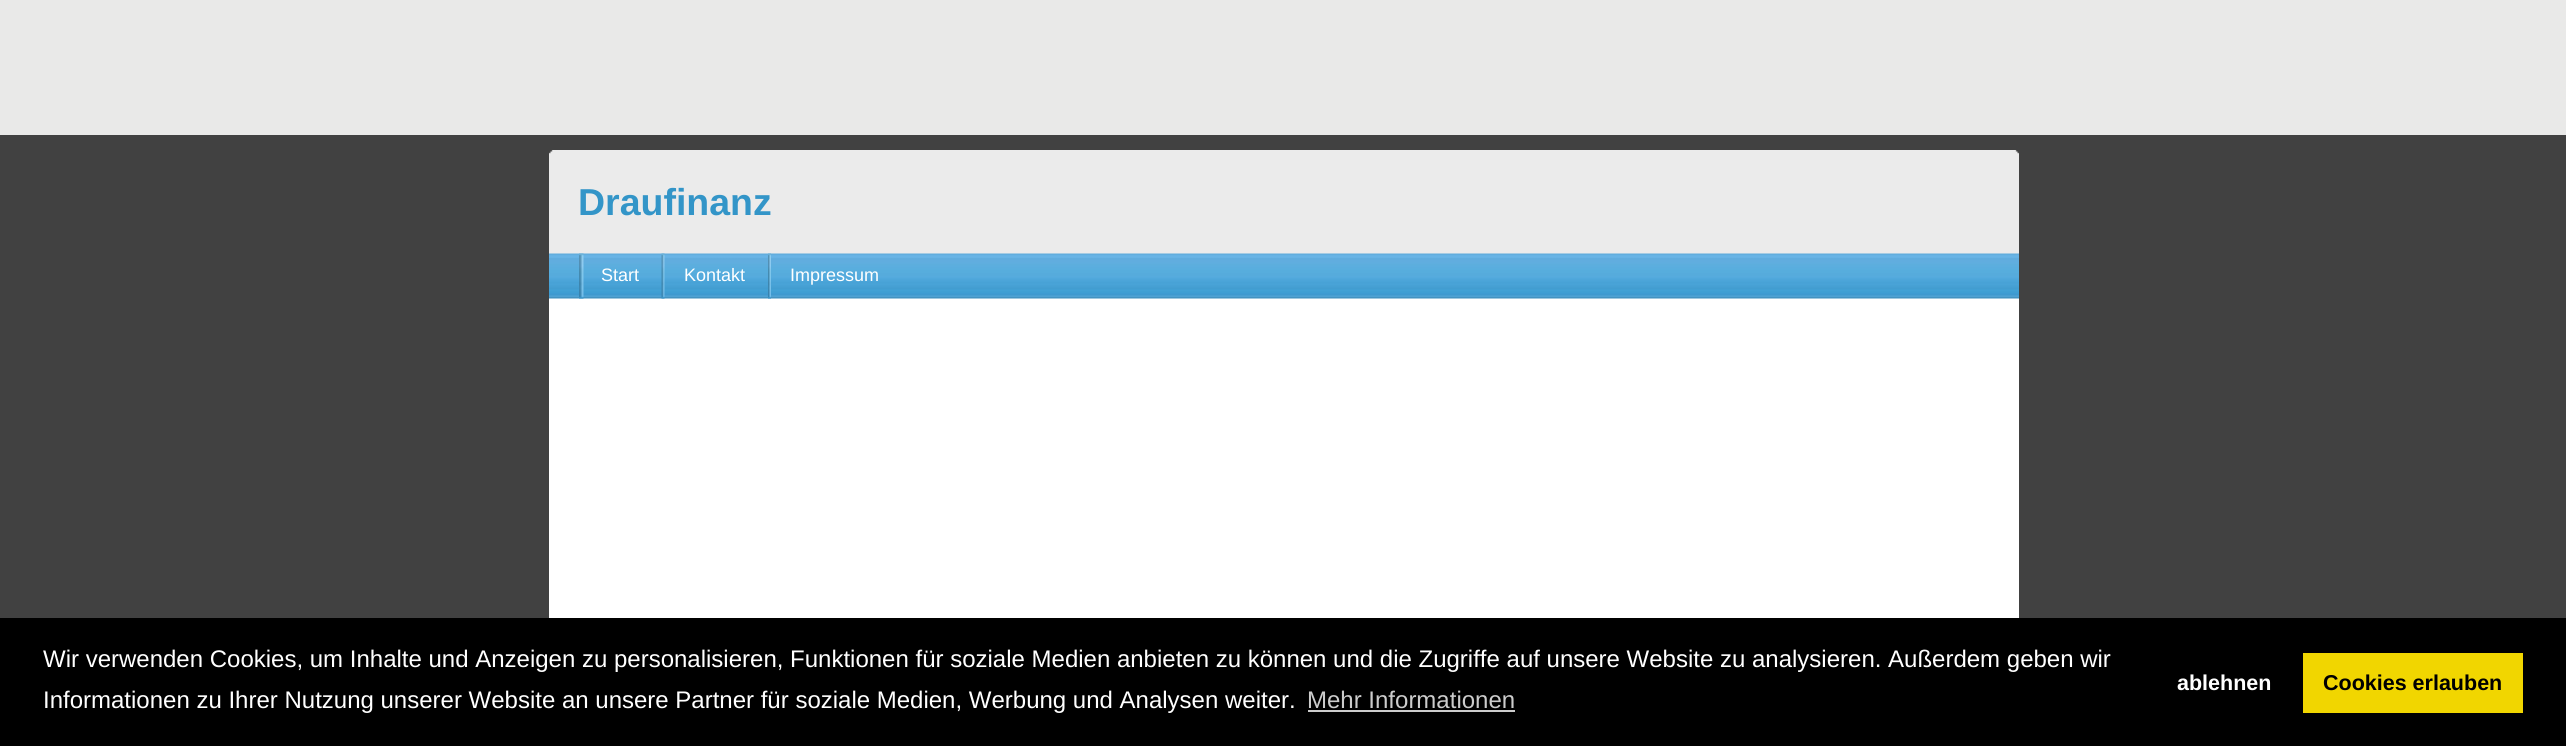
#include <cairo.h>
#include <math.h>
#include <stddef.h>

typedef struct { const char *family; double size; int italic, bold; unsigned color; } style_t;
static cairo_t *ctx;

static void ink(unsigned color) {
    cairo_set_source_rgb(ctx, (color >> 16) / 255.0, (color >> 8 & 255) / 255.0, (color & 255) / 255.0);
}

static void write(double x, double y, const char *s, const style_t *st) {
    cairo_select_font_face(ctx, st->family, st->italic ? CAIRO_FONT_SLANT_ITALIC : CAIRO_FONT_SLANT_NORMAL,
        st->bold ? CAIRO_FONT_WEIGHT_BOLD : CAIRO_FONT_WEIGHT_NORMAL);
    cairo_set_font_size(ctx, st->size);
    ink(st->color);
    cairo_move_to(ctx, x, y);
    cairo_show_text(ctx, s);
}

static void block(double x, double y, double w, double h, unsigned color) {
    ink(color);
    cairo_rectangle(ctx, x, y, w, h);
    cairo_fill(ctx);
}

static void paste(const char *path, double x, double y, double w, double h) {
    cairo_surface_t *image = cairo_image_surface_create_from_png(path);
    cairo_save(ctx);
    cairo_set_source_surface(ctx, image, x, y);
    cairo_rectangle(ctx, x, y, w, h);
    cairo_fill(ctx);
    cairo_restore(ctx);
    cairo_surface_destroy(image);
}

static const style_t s1 = {"Liberation Sans", 37.5, 0, 1, 0x3395c8};
static const style_t s2 = {"Liberation Sans", 18, 0, 0, 0xffffff};
static const style_t s3 = {"Liberation Sans", 24, 0, 0, 0xffffff};
static const style_t s4 = {"Liberation Sans", 24, 0, 0, 0xcccccc};
static const style_t s5 = {"Liberation Sans", 21.5, 0, 1, 0xffffff};
static const style_t s6 = {"Liberation Sans", 21.5, 0, 1, 0x000000};

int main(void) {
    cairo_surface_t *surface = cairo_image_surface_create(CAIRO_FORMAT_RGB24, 2566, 746);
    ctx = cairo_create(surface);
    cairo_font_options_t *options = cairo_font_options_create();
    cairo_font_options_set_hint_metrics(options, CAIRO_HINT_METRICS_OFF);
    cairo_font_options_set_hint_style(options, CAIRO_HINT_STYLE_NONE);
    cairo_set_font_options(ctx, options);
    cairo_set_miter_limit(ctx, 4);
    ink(0x414141);
    cairo_paint(ctx);
    block(0, 0, 2566, 135, 0xe9e9e8);
    block(549, 298, 1470, 320, 0xffffff);
    block(549, 150, 1470, 104, 0xebebeb);
    paste("pic1.png", 549, 150, 1470, 4);
    write(578, 215, "Draufinanz", &s1);
    paste("pic2.png", 549, 253, 1470, 46);
    paste("pic3.png", 579, 253, 5, 46);
    write(601, 281, "Start", &s2);
    paste("pic4.png", 661, 253, 4, 46);
    write(684, 281, "Kontakt", &s2);
    paste("pic5.png", 768, 253, 3, 46);
    write(790, 281, "Impressum", &s2);
    block(0, 618, 2566, 128, 0x000000);
    write(43, 667, "Wir verwenden Cookies, um Inhalte und Anzeigen zu personalisieren, Funktionen für soziale Medien anbieten zu können und die Zugriffe auf unsere Website zu analysieren. Außerdem geben wir", &s3);
    write(43, 708, "Informationen zu Ihrer Nutzung unserer Website an unsere Partner für soziale Medien, Werbung und Analysen weiter.", &s3);
    write(1307, 708, "Mehr Informationen", &s4);
    block(1308, 710, 207, 2, 0xcccccc);
    write(2177, 690, "ablehnen", &s5);
    block(2303, 653, 220, 60, 0xf1d600);
    write(2323, 690, "Cookies erlauben", &s6);
    cairo_surface_write_to_png(surface, "screenshot.png");
    cairo_font_options_destroy(options);
    cairo_destroy(ctx);
    cairo_surface_destroy(surface);
    return 0;
}
